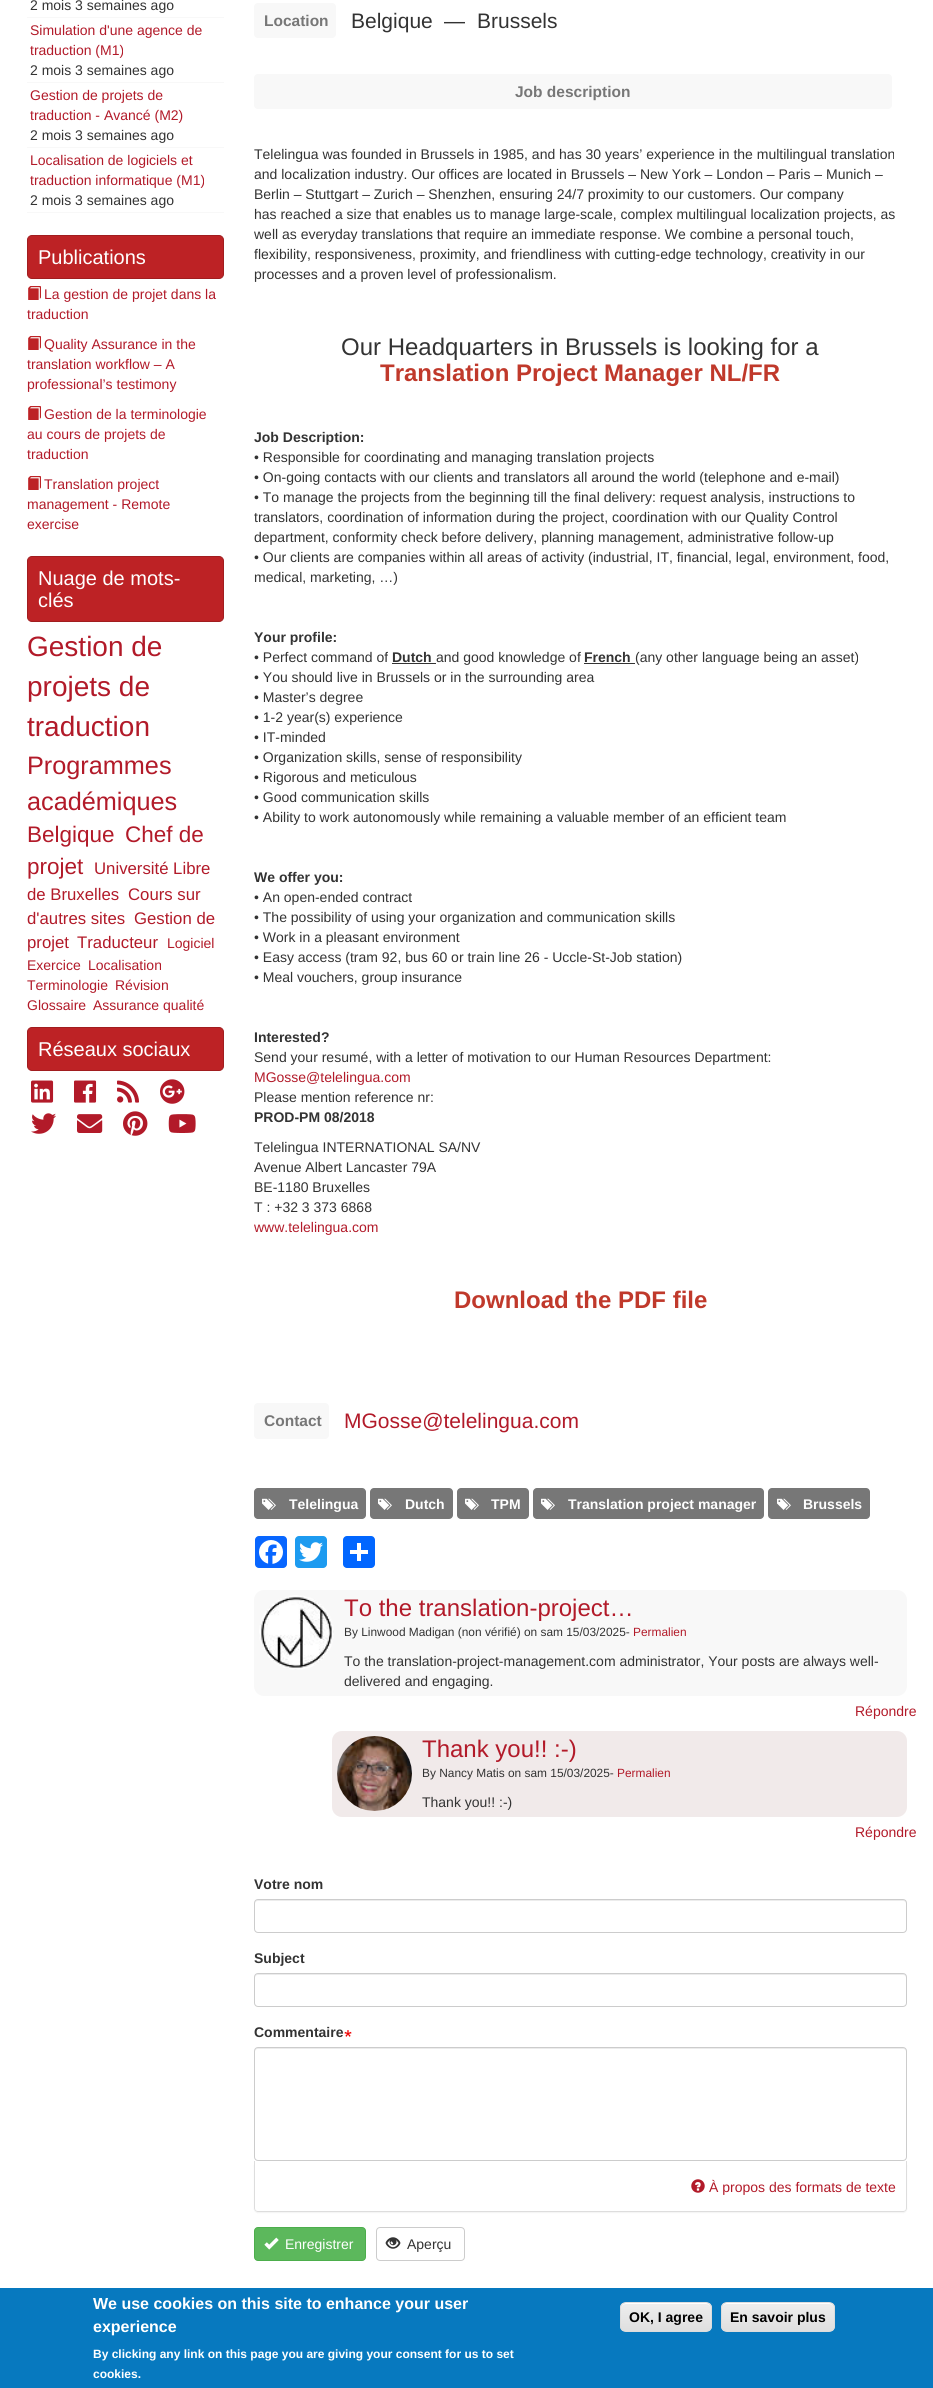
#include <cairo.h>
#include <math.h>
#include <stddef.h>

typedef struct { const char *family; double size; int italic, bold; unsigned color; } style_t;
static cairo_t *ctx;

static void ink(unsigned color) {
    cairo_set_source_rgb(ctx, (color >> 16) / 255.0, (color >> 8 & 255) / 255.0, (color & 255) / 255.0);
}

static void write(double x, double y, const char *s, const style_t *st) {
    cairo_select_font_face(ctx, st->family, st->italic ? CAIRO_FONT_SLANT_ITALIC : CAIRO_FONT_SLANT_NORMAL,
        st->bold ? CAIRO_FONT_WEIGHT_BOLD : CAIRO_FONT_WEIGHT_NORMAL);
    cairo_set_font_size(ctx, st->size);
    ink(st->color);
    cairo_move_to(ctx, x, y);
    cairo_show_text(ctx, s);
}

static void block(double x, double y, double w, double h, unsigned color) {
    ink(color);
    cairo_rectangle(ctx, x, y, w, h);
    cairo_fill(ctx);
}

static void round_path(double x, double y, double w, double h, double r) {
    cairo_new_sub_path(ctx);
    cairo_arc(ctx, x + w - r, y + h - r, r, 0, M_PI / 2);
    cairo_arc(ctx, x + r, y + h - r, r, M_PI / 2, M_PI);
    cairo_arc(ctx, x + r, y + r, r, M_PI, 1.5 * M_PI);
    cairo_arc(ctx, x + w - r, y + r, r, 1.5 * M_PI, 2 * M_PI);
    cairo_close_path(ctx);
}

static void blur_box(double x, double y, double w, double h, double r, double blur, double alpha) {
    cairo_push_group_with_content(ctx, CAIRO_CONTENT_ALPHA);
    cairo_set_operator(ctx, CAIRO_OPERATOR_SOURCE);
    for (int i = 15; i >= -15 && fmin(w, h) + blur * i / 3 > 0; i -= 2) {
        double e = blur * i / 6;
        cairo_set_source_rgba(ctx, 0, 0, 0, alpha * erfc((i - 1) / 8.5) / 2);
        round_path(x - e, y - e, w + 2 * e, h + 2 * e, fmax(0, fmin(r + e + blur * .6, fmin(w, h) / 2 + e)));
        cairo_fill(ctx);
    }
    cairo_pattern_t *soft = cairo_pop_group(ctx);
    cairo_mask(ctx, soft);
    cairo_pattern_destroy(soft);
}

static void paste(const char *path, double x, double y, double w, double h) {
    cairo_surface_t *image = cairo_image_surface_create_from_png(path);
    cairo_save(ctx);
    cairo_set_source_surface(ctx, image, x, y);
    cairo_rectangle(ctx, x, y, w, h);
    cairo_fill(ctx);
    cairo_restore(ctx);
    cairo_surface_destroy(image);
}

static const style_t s1 = {"Liberation Sans", 14, 0, 0, 0x333333};
static const style_t s2 = {"Liberation Sans", 14, 0, 0, 0xb21a29};
static const style_t s3 = {"Liberation Sans", 20, 0, 0, 0xffffff};
static const style_t s4 = {"Liberation Sans", 28, 0, 0, 0xb21a29};
static const style_t s5 = {"Liberation Sans", 25.25, 0, 0, 0xb21a29};
static const style_t s6 = {"Liberation Sans", 22.5, 0, 0, 0xb21a29};
static const style_t s7 = {"Liberation Sans", 16.75, 0, 0, 0xb21a29};
static const style_t s8 = {"Liberation Sans", 15.5, 0, 1, 0x777777};
static const style_t s9 = {"Liberation Sans", 21, 0, 0, 0x333333};
static const style_t s10 = {"Liberation Sans", 24, 0, 0, 0x333333};
static const style_t s11 = {"Liberation Sans", 24, 0, 1, 0xc0392b};
static const style_t s12 = {"Liberation Sans", 14, 0, 1, 0x333333};
static const style_t s13 = {"Liberation Sans", 21, 0, 0, 0xb21a29};
static const style_t s14 = {"Liberation Sans", 14, 0, 1, 0xffffff};
static const style_t s15 = {"Liberation Sans", 24, 0, 0, 0xb21a29};
static const style_t s16 = {"Liberation Sans", 11.9, 0, 0, 0x333333};
static const style_t s17 = {"Liberation Sans", 11.9, 0, 0, 0xb21a29};
static const style_t s18 = {"Liberation Sans", 14, 0, 0, 0xffffff};
static const style_t s19 = {"Liberation Sans", 16, 0, 1, 0xffffff};
static const style_t s20 = {"Liberation Sans", 12, 0, 1, 0xffffff};
static const style_t s21 = {"Liberation Sans", 14, 0, 1, 0x000000};

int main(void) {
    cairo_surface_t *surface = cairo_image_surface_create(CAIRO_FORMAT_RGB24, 933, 2388);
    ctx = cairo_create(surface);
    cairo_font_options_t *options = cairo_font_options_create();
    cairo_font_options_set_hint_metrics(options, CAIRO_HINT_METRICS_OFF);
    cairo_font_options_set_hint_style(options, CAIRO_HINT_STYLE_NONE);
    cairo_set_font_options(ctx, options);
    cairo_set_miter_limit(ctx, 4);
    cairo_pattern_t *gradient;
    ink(0xffffff);
    cairo_paint(ctx);
    block(27, 17, 197, 1, 0xf8f8f8);
    write(30, 10, "2 mois 3 semaines ago", &s1);
    block(27, 82, 197, 1, 0xf8f8f8);
    write(30, 35, "Simulation d'une agence de", &s2);
    write(30, 55, "traduction (M1)", &s2);
    write(30, 75, "2 mois 3 semaines ago", &s1);
    block(27, 147, 197, 1, 0xf8f8f8);
    write(30, 100, "Gestion de projets de", &s2);
    write(30, 120, "traduction - Avancé (M2)", &s2);
    write(30, 140, "2 mois 3 semaines ago", &s1);
    block(27, 212, 197, 1, 0xf8f8f8);
    write(30, 165, "Localisation de logiciels et", &s2);
    write(30, 185, "traduction informatique (M1)", &s2);
    write(30, 205, "2 mois 3 semaines ago", &s1);
    ink(0xbd2225);
    round_path(27.5, 235.5, 196, 43, 4.5);
    cairo_fill_preserve(ctx);
    ink(0xa11d1f);
    cairo_set_line_width(ctx, 1);
    cairo_stroke(ctx);
    write(38, 264, "Publications", &s3);
    paste("pic1.png", 28, 286, 13, 14);
    write(44, 299, "La gestion de projet dans la", &s2);
    write(27, 319, "traduction", &s2);
    paste("pic1.png", 28, 336, 13, 14);
    write(44, 349, "Quality Assurance in the", &s2);
    write(27, 369, "translation workflow – A", &s2);
    write(27, 389, "professional’s testimony", &s2);
    paste("pic1.png", 28, 406, 13, 14);
    write(44, 419, "Gestion de la terminologie", &s2);
    write(27, 439, "au cours de projets de", &s2);
    write(27, 459, "traduction", &s2);
    paste("pic1.png", 28, 476, 13, 14);
    write(44, 489, "Translation project", &s2);
    write(27, 509, "management - Remote", &s2);
    write(27, 529, "exercise", &s2);
    ink(0xbd2225);
    round_path(27.5, 556.5, 196, 65, 4.5);
    cairo_fill_preserve(ctx);
    ink(0xa11d1f);
    cairo_stroke(ctx);
    write(38, 585, "Nuage de mots-", &s3);
    write(38, 607, "clés", &s3);
    write(27, 656, "Gestion de", &s4);
    write(27, 696, "projets de", &s4);
    write(27, 736, "traduction", &s4);
    write(27, 774, "Programmes", &s5);
    write(27, 810, "académiques", &s5);
    write(27, 842, "Belgique", &s6);
    write(125, 842, "Chef de", &s6);
    write(27, 874, "projet", &s6);
    write(94, 874, "Université Libre", &s7);
    write(27, 900, "de Bruxelles", &s7);
    write(128, 900, "Cours sur", &s7);
    write(27, 924, "d'autres sites", &s7);
    write(134, 924, "Gestion de", &s7);
    write(27, 948, "projet", &s7);
    write(77, 948, "Traducteur", &s7);
    write(167, 948, "Logiciel", &s2);
    write(27, 970, "Exercice", &s2);
    write(88, 970, "Localisation", &s2);
    write(27, 990, "Terminologie", &s2);
    write(115, 990, "Révision", &s2);
    write(27, 1010, "Glossaire", &s2);
    write(93, 1010, "Assurance qualité", &s2);
    ink(0xbd2225);
    round_path(27.5, 1027.5, 196, 43, 4.5);
    cairo_fill_preserve(ctx);
    ink(0xa11d1f);
    cairo_stroke(ctx);
    write(38, 1056, "Réseaux sociaux", &s3);
    paste("pic2.png", 31, 1080, 23, 23);
    paste("pic3.png", 74, 1080, 23, 23);
    paste("pic4.png", 117, 1080, 22, 23);
    paste("pic5.png", 160, 1079, 25, 25);
    paste("pic6.png", 31, 1113, 25, 21);
    paste("pic7.png", 77, 1114, 26, 19);
    paste("pic8.png", 123, 1111, 25, 25);
    paste("pic9.png", 168, 1114, 28, 19);
    ink(0xf8f8f8);
    round_path(254, 3, 82, 35, 4);
    cairo_fill(ctx);
    write(264, 26, "Location", &s8);
    write(351, 28, "Belgique", &s9);
    write(444, 28, "—", &s9);
    write(477, 28, "Brussels", &s9);
    ink(0xf8f8f8);
    round_path(254, 74, 638, 35, 4);
    cairo_fill(ctx);
    write(515, 97, "Job description", &s8);
    write(254, 159, "Telelingua was founded in Brussels in 1985, and has 30 years’ experience in the multilingual translation", &s1);
    write(254, 179, "and localization industry. Our offices are located in Brussels – New York – London – Paris – Munich –", &s1);
    write(254, 199, "Berlin – Stuttgart – Zurich – Shenzhen, ensuring 24/7 proximity to our customers. Our company", &s1);
    write(254, 219, "has reached a size that enables us to manage large-scale, complex multilingual localization projects, as", &s1);
    write(254, 239, "well as everyday translations that require an immediate response. We combine a personal touch,", &s1);
    write(254, 259, "flexibility, responsiveness, proximity, and friendliness with cutting-edge technology, creativity in our", &s1);
    write(254, 279, "processes and a proven level of professionalism.", &s1);
    write(341, 355, "Our Headquarters in Brussels is looking for a", &s10);
    write(380, 381, "Translation Project Manager NL/FR", &s11);
    write(254, 442, "Job Description:", &s12);
    write(254, 462, "• Responsible for coordinating and managing translation projects", &s1);
    write(254, 482, "• On-going contacts with our clients and translators all around the world (telephone and e-mail)", &s1);
    write(254, 502, "• To manage the projects from the beginning till the final delivery: request analysis, instructions to", &s1);
    write(254, 522, "translators, coordination of information during the project, coordination with our Quality Control", &s1);
    write(254, 542, "department, conformity check before delivery, planning management, administrative follow-up", &s1);
    write(254, 562, "• Our clients are companies within all areas of activity (industrial, IT, financial, legal, environment, food,", &s1);
    write(254, 582, "medical, marketing, …)", &s1);
    write(254, 642, "Your profile:", &s12);
    write(254, 662, "• Perfect command of", &s1);
    write(392, 662, "Dutch", &s12);
    block(392, 663, 44, 1, 0x333333);
    write(436, 662, "and good knowledge of", &s1);
    write(584, 662, "French", &s12);
    block(584, 663, 51, 1, 0x333333);
    write(635, 662, "(any other language being an asset)", &s1);
    write(254, 682, "• You should live in Brussels or in the surrounding area", &s1);
    write(254, 702, "• Master’s degree", &s1);
    write(254, 722, "• 1-2 year(s) experience", &s1);
    write(254, 742, "• IT-minded", &s1);
    write(254, 762, "• Organization skills, sense of responsibility", &s1);
    write(254, 782, "• Rigorous and meticulous", &s1);
    write(254, 802, "• Good communication skills", &s1);
    write(254, 822, "• Ability to work autonomously while remaining a valuable member of an efficient team", &s1);
    write(254, 882, "We offer you:", &s12);
    write(254, 902, "• An open-ended contract", &s1);
    write(254, 922, "• The possibility of using your organization and communication skills", &s1);
    write(254, 942, "• Work in a pleasant environment", &s1);
    write(254, 962, "• Easy access (tram 92, bus 60 or train line 26 - Uccle-St-Job station)", &s1);
    write(254, 982, "• Meal vouchers, group insurance", &s1);
    write(254, 1042, "Interested?", &s12);
    write(254, 1062, "Send your resumé, with a letter of motivation to our Human Resources Department:", &s1);
    write(254, 1082, "MGosse@telelingua.com", &s2);
    write(254, 1102, "Please mention reference nr:", &s1);
    write(254, 1122, "PROD-PM 08/2018", &s12);
    write(254, 1152, "Telelingua INTERNATIONAL SA/NV", &s1);
    write(254, 1172, "Avenue Albert Lancaster 79A", &s1);
    write(254, 1192, "BE-1180 Bruxelles", &s1);
    write(254, 1212, "T : +32 3 373 6868", &s1);
    write(254, 1232, "www.telelingua.com", &s2);
    write(454, 1308, "Download the PDF file", &s11);
    ink(0xf8f8f8);
    round_path(254, 1403, 75, 36, 4);
    cairo_fill(ctx);
    write(264, 1426, "Contact", &s8);
    write(344, 1428, "MGosse@telelingua.com", &s13);
    ink(0x777777);
    round_path(254, 1488, 112, 31, 4);
    cairo_fill(ctx);
    paste("pic10.png", 262, 1498, 14, 12);
    write(289, 1509, "Telelingua", &s14);
    ink(0x777777);
    round_path(370, 1488, 83, 31, 4);
    cairo_fill(ctx);
    paste("pic10.png", 378, 1498, 14, 12);
    write(405, 1509, "Dutch", &s14);
    ink(0x777777);
    round_path(457, 1488, 72, 31, 4);
    cairo_fill(ctx);
    paste("pic10.png", 465, 1498, 14, 12);
    write(491, 1509, "TPM", &s14);
    ink(0x777777);
    round_path(533, 1488, 231, 31, 4);
    cairo_fill(ctx);
    paste("pic10.png", 541, 1498, 14, 12);
    write(568, 1509, "Translation project manager", &s14);
    ink(0x777777);
    round_path(768, 1488, 102, 31, 4);
    cairo_fill(ctx);
    paste("pic10.png", 777, 1498, 14, 12);
    write(803, 1509, "Brussels", &s14);
    ink(0x0866ff);
    round_path(255, 1536, 32, 32, 4);
    cairo_fill(ctx);
    paste("pic11.png", 259, 1540, 24, 24);
    ink(0x1d9bf0);
    round_path(295, 1536, 32, 32, 4);
    cairo_fill(ctx);
    paste("pic12.png", 299, 1542, 24, 20);
    ink(0x0166ff);
    round_path(343, 1536, 32, 32, 4);
    cairo_fill(ctx);
    block(357, 1543, 4, 18, 0xffffff);
    block(350, 1550, 18, 4, 0xffffff);
    ink(0xf8f8f8);
    round_path(254, 1590, 653, 106, 10);
    cairo_fill(ctx);
    paste("pic13.png", 259, 1595, 75, 75);
    write(344, 1616, "To the translation-project…", &s15);
    write(344, 1636, "By Linwood Madigan (non vérifié) on sam 15/03/2025-", &s16);
    write(633, 1636, "Permalien", &s17);
    write(344, 1666, "To the translation-project-management.com administrator, Your posts are always well-", &s1);
    write(344, 1686, "delivered and engaging.", &s1);
    write(855, 1716, "Répondre", &s2);
    ink(0xf1eaea);
    round_path(332, 1731, 575, 86, 10);
    cairo_fill(ctx);
    paste("pic14.png", 337, 1736, 75, 75);
    write(422, 1757, "Thank you!! :-)", &s15);
    write(422, 1777, "By Nancy Matis on sam 15/03/2025-", &s16);
    write(617, 1777, "Permalien", &s17);
    write(422, 1807, "Thank you!! :-)", &s1);
    write(855, 1837, "Répondre", &s2);
    write(254, 1889, "Votre nom", &s12);
    ink(0xececec);
    cairo_new_path(ctx);
    cairo_move_to(ctx, 258, 1901);
    cairo_line_to(ctx, 903, 1901);
    cairo_curve_to(ctx, 905, 1901, 906, 1902, 906, 1904);
    cairo_line_to(ctx, 906, 1903);
    cairo_curve_to(ctx, 906, 1901, 905, 1900, 903, 1900);
    cairo_line_to(ctx, 258, 1900);
    cairo_curve_to(ctx, 256, 1900, 255, 1901, 255, 1903);
    cairo_line_to(ctx, 255, 1904);
    cairo_curve_to(ctx, 255, 1902, 256, 1901, 258, 1901);
    cairo_close_path(ctx);
    cairo_fill(ctx);
    round_path(254.5, 1899.5, 652, 33, 3.5);
    ink(0xcccccc);
    cairo_stroke(ctx);
    write(254, 1963, "Subject", &s12);
    ink(0xececec);
    cairo_new_path(ctx);
    cairo_move_to(ctx, 258, 1975);
    cairo_line_to(ctx, 903, 1975);
    cairo_curve_to(ctx, 905, 1975, 906, 1976, 906, 1978);
    cairo_line_to(ctx, 906, 1977);
    cairo_curve_to(ctx, 906, 1975, 905, 1974, 903, 1974);
    cairo_line_to(ctx, 258, 1974);
    cairo_curve_to(ctx, 256, 1974, 255, 1975, 255, 1977);
    cairo_line_to(ctx, 255, 1978);
    cairo_curve_to(ctx, 255, 1976, 256, 1975, 258, 1975);
    cairo_close_path(ctx);
    cairo_fill(ctx);
    round_path(254.5, 1973.5, 652, 33, 3.5);
    ink(0xcccccc);
    cairo_stroke(ctx);
    write(254, 2037, "Commentaire", &s12);
    paste("pic15.png", 344, 2030, 8, 7);
    ink(0xececec);
    cairo_new_path(ctx);
    cairo_move_to(ctx, 258, 2049);
    cairo_line_to(ctx, 903, 2049);
    cairo_curve_to(ctx, 905, 2049, 906, 2050, 906, 2052);
    cairo_line_to(ctx, 906, 2051);
    cairo_curve_to(ctx, 906, 2049, 905, 2048, 903, 2048);
    cairo_line_to(ctx, 258, 2048);
    cairo_curve_to(ctx, 256, 2048, 255, 2049, 255, 2051);
    cairo_line_to(ctx, 255, 2052);
    cairo_curve_to(ctx, 255, 2050, 256, 2049, 258, 2049);
    cairo_close_path(ctx);
    cairo_fill(ctx);
    ink(0x000000);
    blur_box(254, 2162, 653, 51, 4, 0.5, 0.05);
    round_path(254.5, 2047.5, 652, 113, 3.5);
    ink(0xcccccc);
    cairo_stroke(ctx);
    ink(0xffffff);
    cairo_new_path(ctx);
    cairo_move_to(ctx, 254, 2161);
    cairo_line_to(ctx, 907, 2161);
    cairo_line_to(ctx, 907, 2208);
    cairo_curve_to(ctx, 907, 2210, 905, 2212, 903, 2212);
    cairo_line_to(ctx, 258, 2212);
    cairo_curve_to(ctx, 256, 2212, 254, 2210, 254, 2208);
    cairo_close_path(ctx);
    cairo_fill(ctx);
    ink(0xdddddd);
    cairo_set_fill_rule(ctx, CAIRO_FILL_RULE_EVEN_ODD);
    cairo_new_path(ctx);
    cairo_move_to(ctx, 254, 2161);
    cairo_line_to(ctx, 907, 2161);
    cairo_line_to(ctx, 907, 2208);
    cairo_curve_to(ctx, 907, 2210, 905, 2212, 903, 2212);
    cairo_line_to(ctx, 258, 2212);
    cairo_curve_to(ctx, 256, 2212, 254, 2210, 254, 2208);
    cairo_close_path(ctx);
    cairo_move_to(ctx, 255, 2161);
    cairo_line_to(ctx, 906, 2161);
    cairo_line_to(ctx, 906, 2208);
    cairo_curve_to(ctx, 906, 2210, 905, 2211, 903, 2211);
    cairo_line_to(ctx, 258, 2211);
    cairo_curve_to(ctx, 256, 2211, 255, 2210, 255, 2208);
    cairo_close_path(ctx);
    cairo_fill(ctx);
    paste("pic16.png", 691, 2179, 14, 14);
    write(709, 2192, "À propos des formats de texte", &s2);
    ink(0x5cb85c);
    round_path(254.5, 2227.5, 111, 33, 3.5);
    cairo_fill_preserve(ctx);
    ink(0x4cae4c);
    cairo_stroke(ctx);
    paste("pic17.png", 264, 2237, 15, 13);
    write(285, 2249, "Enregistrer", &s18);
    round_path(376.5, 2227.5, 88, 33, 3.5);
    ink(0xcccccc);
    cairo_stroke(ctx);
    paste("pic18.png", 385, 2237, 16, 12);
    write(407, 2249, "Aperçu", &s1);
    block(0, 2288, 933, 100, 0x0779bf);
    write(93, 2309, "We use cookies on this site to enhance your user", &s19);
    write(93, 2332, "experience", &s19);
    write(93, 2358, "By clicking any link on this page you are giving your consent for us to set", &s20);
    write(93, 2378, "cookies.", &s20);
    cairo_save(ctx);
    cairo_set_fill_rule(ctx, CAIRO_FILL_RULE_WINDING);
    round_path(620, 2302, 92, 30, 6);
    cairo_clip(ctx);
    gradient = cairo_pattern_create_linear(666, 2303, 666, 2331);
    cairo_pattern_add_color_stop_rgba(gradient, 0.05, 0.929, 0.929, 0.929, 1);
    cairo_pattern_add_color_stop_rgba(gradient, 1, 0.875, 0.875, 0.875, 1);
    cairo_set_source(ctx, gradient);
    cairo_pattern_destroy(gradient);
    cairo_rectangle(ctx, 620, 2303, 92, 28);
    cairo_fill(ctx);
    cairo_restore(ctx);
    cairo_set_fill_rule(ctx, CAIRO_FILL_RULE_WINDING);
    cairo_new_path(ctx);
    cairo_move_to(ctx, 626, 2304);
    cairo_line_to(ctx, 706, 2304);
    cairo_curve_to(ctx, 709, 2304, 711, 2306, 711, 2309);
    cairo_curve_to(ctx, 711, 2300, 698, 2303, 693, 2303);
    cairo_line_to(ctx, 639, 2303);
    cairo_curve_to(ctx, 634, 2303, 621, 2300, 621, 2309);
    cairo_curve_to(ctx, 621, 2306, 623, 2304, 626, 2304);
    cairo_close_path(ctx);
    cairo_fill(ctx);
    round_path(620.5, 2302.5, 91, 29, 5.5);
    ink(0xdcdcdc);
    cairo_stroke(ctx);
    write(629, 2322, "OK, I agree", &s21);
    cairo_save(ctx);
    round_path(721, 2302, 114, 30, 6);
    cairo_clip(ctx);
    gradient = cairo_pattern_create_linear(778, 2303, 778, 2331);
    cairo_pattern_add_color_stop_rgba(gradient, 0.05, 0.929, 0.929, 0.929, 1);
    cairo_pattern_add_color_stop_rgba(gradient, 1, 0.875, 0.875, 0.875, 1);
    cairo_set_source(ctx, gradient);
    cairo_pattern_destroy(gradient);
    cairo_rectangle(ctx, 721, 2303, 114, 28);
    cairo_fill(ctx);
    cairo_restore(ctx);
    ink(0xffffff);
    cairo_new_path(ctx);
    cairo_move_to(ctx, 727, 2304);
    cairo_line_to(ctx, 829, 2304);
    cairo_curve_to(ctx, 832, 2304, 834, 2306, 834, 2309);
    cairo_curve_to(ctx, 834, 2299, 817, 2303, 812, 2303);
    cairo_line_to(ctx, 744, 2303);
    cairo_curve_to(ctx, 739, 2303, 722, 2299, 722, 2309);
    cairo_curve_to(ctx, 722, 2306, 724, 2304, 727, 2304);
    cairo_close_path(ctx);
    cairo_fill(ctx);
    round_path(721.5, 2302.5, 113, 29, 5.5);
    ink(0xdcdcdc);
    cairo_stroke(ctx);
    write(730, 2322, "En savoir plus", &s21);
    cairo_surface_write_to_png(surface, "screenshot.png");
    cairo_font_options_destroy(options);
    cairo_destroy(ctx);
    cairo_surface_destroy(surface);
    return 0;
}
